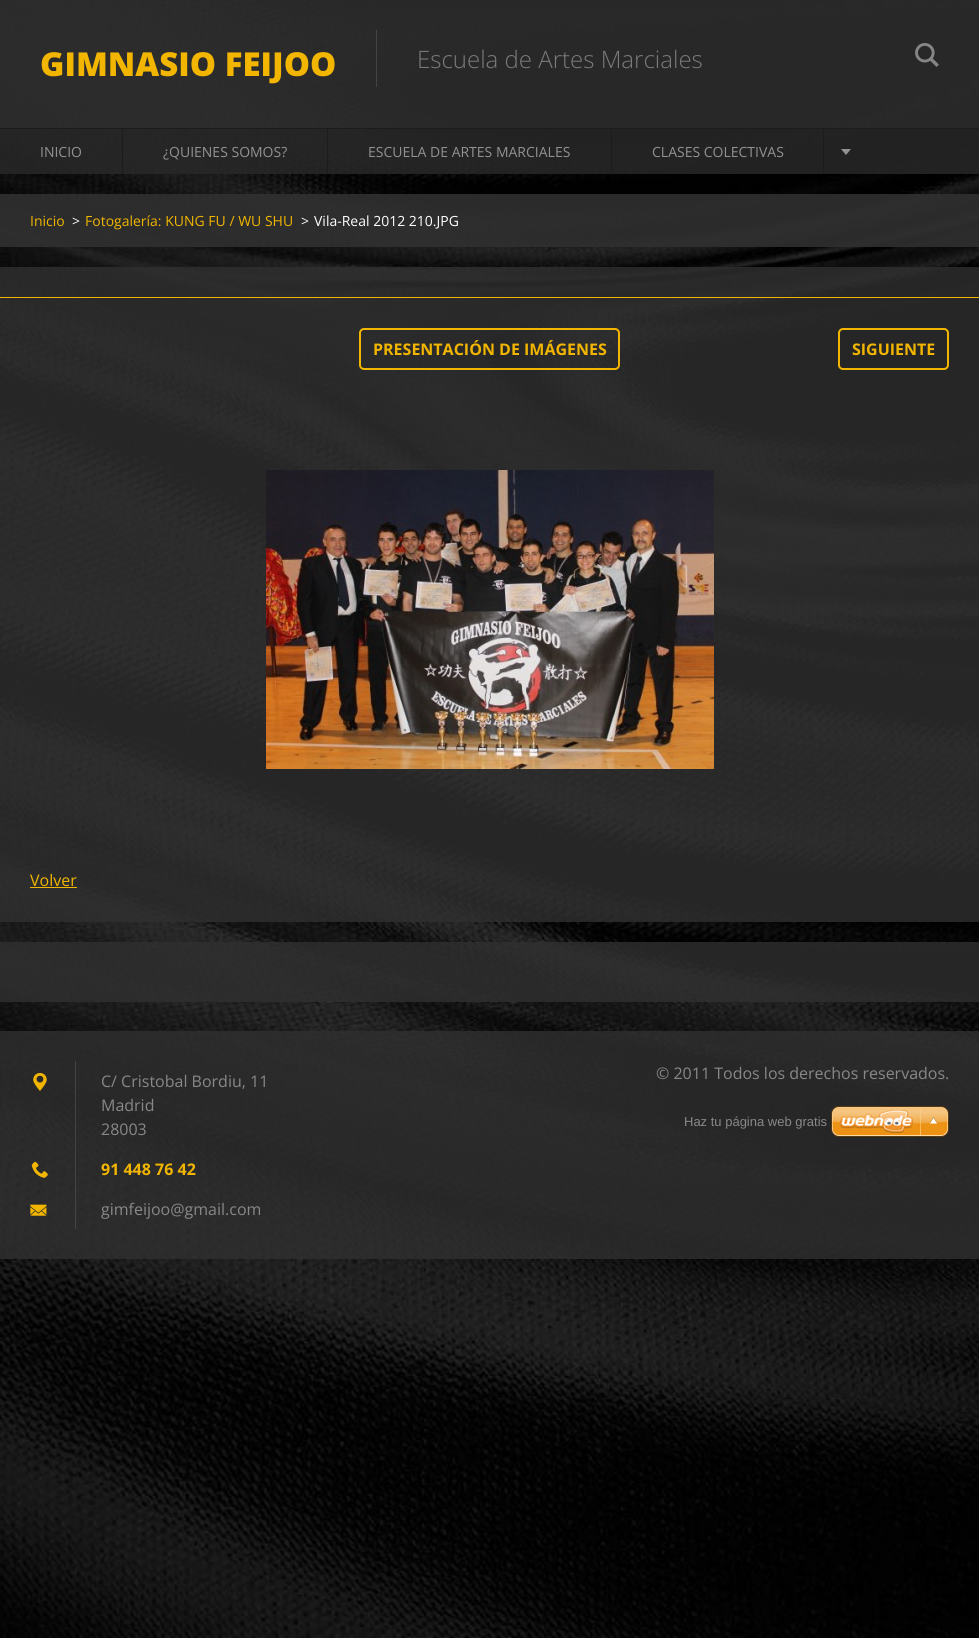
#include <cairo.h>
#include <math.h>
#include <stddef.h>

typedef struct { const char *family; double size; int italic, bold; unsigned color; } style_t;
static cairo_t *ctx;

static void ink(unsigned color) {
    cairo_set_source_rgb(ctx, (color >> 16) / 255.0, (color >> 8 & 255) / 255.0, (color & 255) / 255.0);
}

static void write(double x, double y, const char *s, const style_t *st) {
    cairo_select_font_face(ctx, st->family, st->italic ? CAIRO_FONT_SLANT_ITALIC : CAIRO_FONT_SLANT_NORMAL,
        st->bold ? CAIRO_FONT_WEIGHT_BOLD : CAIRO_FONT_WEIGHT_NORMAL);
    cairo_set_font_size(ctx, st->size);
    ink(st->color);
    cairo_move_to(ctx, x, y);
    cairo_show_text(ctx, s);
}

static void block(double x, double y, double w, double h, unsigned color) {
    ink(color);
    cairo_rectangle(ctx, x, y, w, h);
    cairo_fill(ctx);
}

static void round_path(double x, double y, double w, double h, double r) {
    cairo_new_sub_path(ctx);
    cairo_arc(ctx, x + w - r, y + h - r, r, 0, M_PI / 2);
    cairo_arc(ctx, x + r, y + h - r, r, M_PI / 2, M_PI);
    cairo_arc(ctx, x + r, y + r, r, M_PI, 1.5 * M_PI);
    cairo_arc(ctx, x + w - r, y + r, r, 1.5 * M_PI, 2 * M_PI);
    cairo_close_path(ctx);
}

static void paste(const char *path, double x, double y, double w, double h) {
    cairo_surface_t *image = cairo_image_surface_create_from_png(path);
    cairo_save(ctx);
    cairo_set_source_surface(ctx, image, x, y);
    cairo_rectangle(ctx, x, y, w, h);
    cairo_fill(ctx);
    cairo_restore(ctx);
    cairo_surface_destroy(image);
}

static const style_t s1 = {"Open Sans ExtraBold", 33, 0, 0, 0xf2b600};
static const style_t s2 = {"Open Sans Light", 24, 0, 0, 0x7a7a7a};
static const style_t s3 = {"Open Sans", 14, 0, 0, 0x929292};
static const style_t s4 = {"Open Sans", 14, 0, 0, 0xf2b600};
static const style_t s5 = {"Open Sans", 14, 0, 0, 0xffffff};
static const style_t s6 = {"Open Sans", 16, 0, 1, 0xf2b600};
static const style_t s7 = {"Open Sans", 16, 0, 0, 0xf2b600};
static const style_t s8 = {"Open Sans", 16, 0, 0, 0x888888};
static const style_t s9 = {"Liberation Sans", 13, 0, 0, 0x888888};

int main(void) {
    cairo_surface_t *surface = cairo_image_surface_create(CAIRO_FORMAT_RGB24, 979, 1638);
    ctx = cairo_create(surface);
    cairo_font_options_t *options = cairo_font_options_create();
    cairo_font_options_set_hint_metrics(options, CAIRO_HINT_METRICS_OFF);
    cairo_font_options_set_hint_style(options, CAIRO_HINT_STYLE_NONE);
    cairo_set_font_options(ctx, options);
    cairo_set_miter_limit(ctx, 4);
    ink(0xffffff);
    cairo_paint(ctx);
    paste("pic1.png", 0, 0, 979, 1638);
    cairo_set_source_rgba(ctx, 0.188, 0.188, 0.188, 0.85);
    cairo_rectangle(ctx, 0, 0, 979, 128);
    cairo_fill(ctx);
    write(40, 76, "GIMNASIO FEIJOO", &s1);
    block(376, 30, 1, 57, 0x444444);
    write(417, 68, "Escuela de Artes Marciales", &s2);
    paste("pic2.png", 915, 43, 24, 24);
    block(0, 128, 979, 1, 0x1c1c1c);
    cairo_set_source_rgba(ctx, 0.157, 0.157, 0.157, 0.85);
    cairo_rectangle(ctx, 0, 129, 979, 45);
    cairo_fill(ctx);
    block(122, 129, 1, 45, 0x1c1c1c);
    write(40, 157, "INICIO", &s3);
    block(327, 129, 1, 45, 0x1c1c1c);
    write(163, 157, "¿QUIENES SOMOS?", &s3);
    block(611, 129, 1, 45, 0x1c1c1c);
    write(368, 157, "ESCUELA DE ARTES MARCIALES", &s3);
    block(823, 129, 1, 45, 0x1c1c1c);
    write(652, 157, "CLASES COLECTIVAS", &s3);
    cairo_new_path(ctx);
    cairo_move_to(ctx, 841, 149);
    cairo_line_to(ctx, 851, 149);
    cairo_line_to(ctx, 846, 155);
    cairo_close_path(ctx);
    cairo_fill(ctx);
    cairo_set_source_rgba(ctx, 0.188, 0.188, 0.188, 0.9);
    cairo_rectangle(ctx, 0, 194, 979, 53);
    cairo_fill(ctx);
    write(30, 226, "Inicio", &s4);
    write(72, 226, ">", &s5);
    write(85, 226, "Fotogalería: KUNG FU / WU SHU", &s4);
    write(301, 226, ">", &s5);
    write(314, 226, "Vila-Real 2012 210.JPG", &s5);
    cairo_set_source_rgba(ctx, 0.188, 0.188, 0.188, 0.8);
    cairo_rectangle(ctx, 0, 267, 979, 30);
    cairo_fill(ctx);
    block(0, 297, 979, 1, 0xf2b600);
    cairo_set_source_rgba(ctx, 0.188, 0.188, 0.188, 0.8);
    cairo_rectangle(ctx, 0, 298, 979, 570);
    cairo_fill(ctx);
    round_path(360, 329, 259, 40, 4);
    ink(0xf2b600);
    cairo_stroke(ctx);
    write(373, 355, "PRESENTACIÓN DE IMÁGENES", &s6);
    round_path(839, 329, 109, 40, 4);
    cairo_stroke(ctx);
    write(852, 355, "SIGUIENTE", &s6);
    paste("pic3.png", 266, 470, 448, 299);
    cairo_set_source_rgba(ctx, 0.188, 0.188, 0.188, 0.8);
    cairo_rectangle(ctx, 0, 868, 979, 54);
    cairo_fill(ctx);
    write(30, 886, "Volver", &s7);
    block(30, 887, 47, 1, 0xf2b600);
    cairo_set_source_rgba(ctx, 0.188, 0.188, 0.188, 0.8);
    cairo_rectangle(ctx, 0, 942, 979, 30);
    cairo_fill(ctx);
    cairo_rectangle(ctx, 0, 972, 979, 30);
    cairo_fill(ctx);
    cairo_rectangle(ctx, 0, 1031, 979, 228);
    cairo_fill(ctx);
    paste("pic4.png", 33, 1073, 14, 18);
    block(75, 1061, 1, 168, 0x444444);
    write(101, 1087, "C/ Cristobal Bordiu, 11", &s8);
    write(101, 1111, "Madrid", &s8);
    write(101, 1135, "28003", &s8);
    paste("pic5.png", 31, 1161, 17, 17);
    write(101, 1175, "91 448 76 42", &s6);
    paste("pic6.png", 30, 1204, 17, 12);
    write(101, 1215, "gimfeijoo@gmail.com", &s8);
    write(656, 1079, "© 2011 Todos los derechos reservados.", &s8);
    write(684, 1126, "Haz tu página web gratis", &s9);
    paste("pic7.png", 831, 1106, 118, 31);
    cairo_surface_write_to_png(surface, "screenshot.png");
    cairo_font_options_destroy(options);
    cairo_destroy(ctx);
    cairo_surface_destroy(surface);
    return 0;
}
